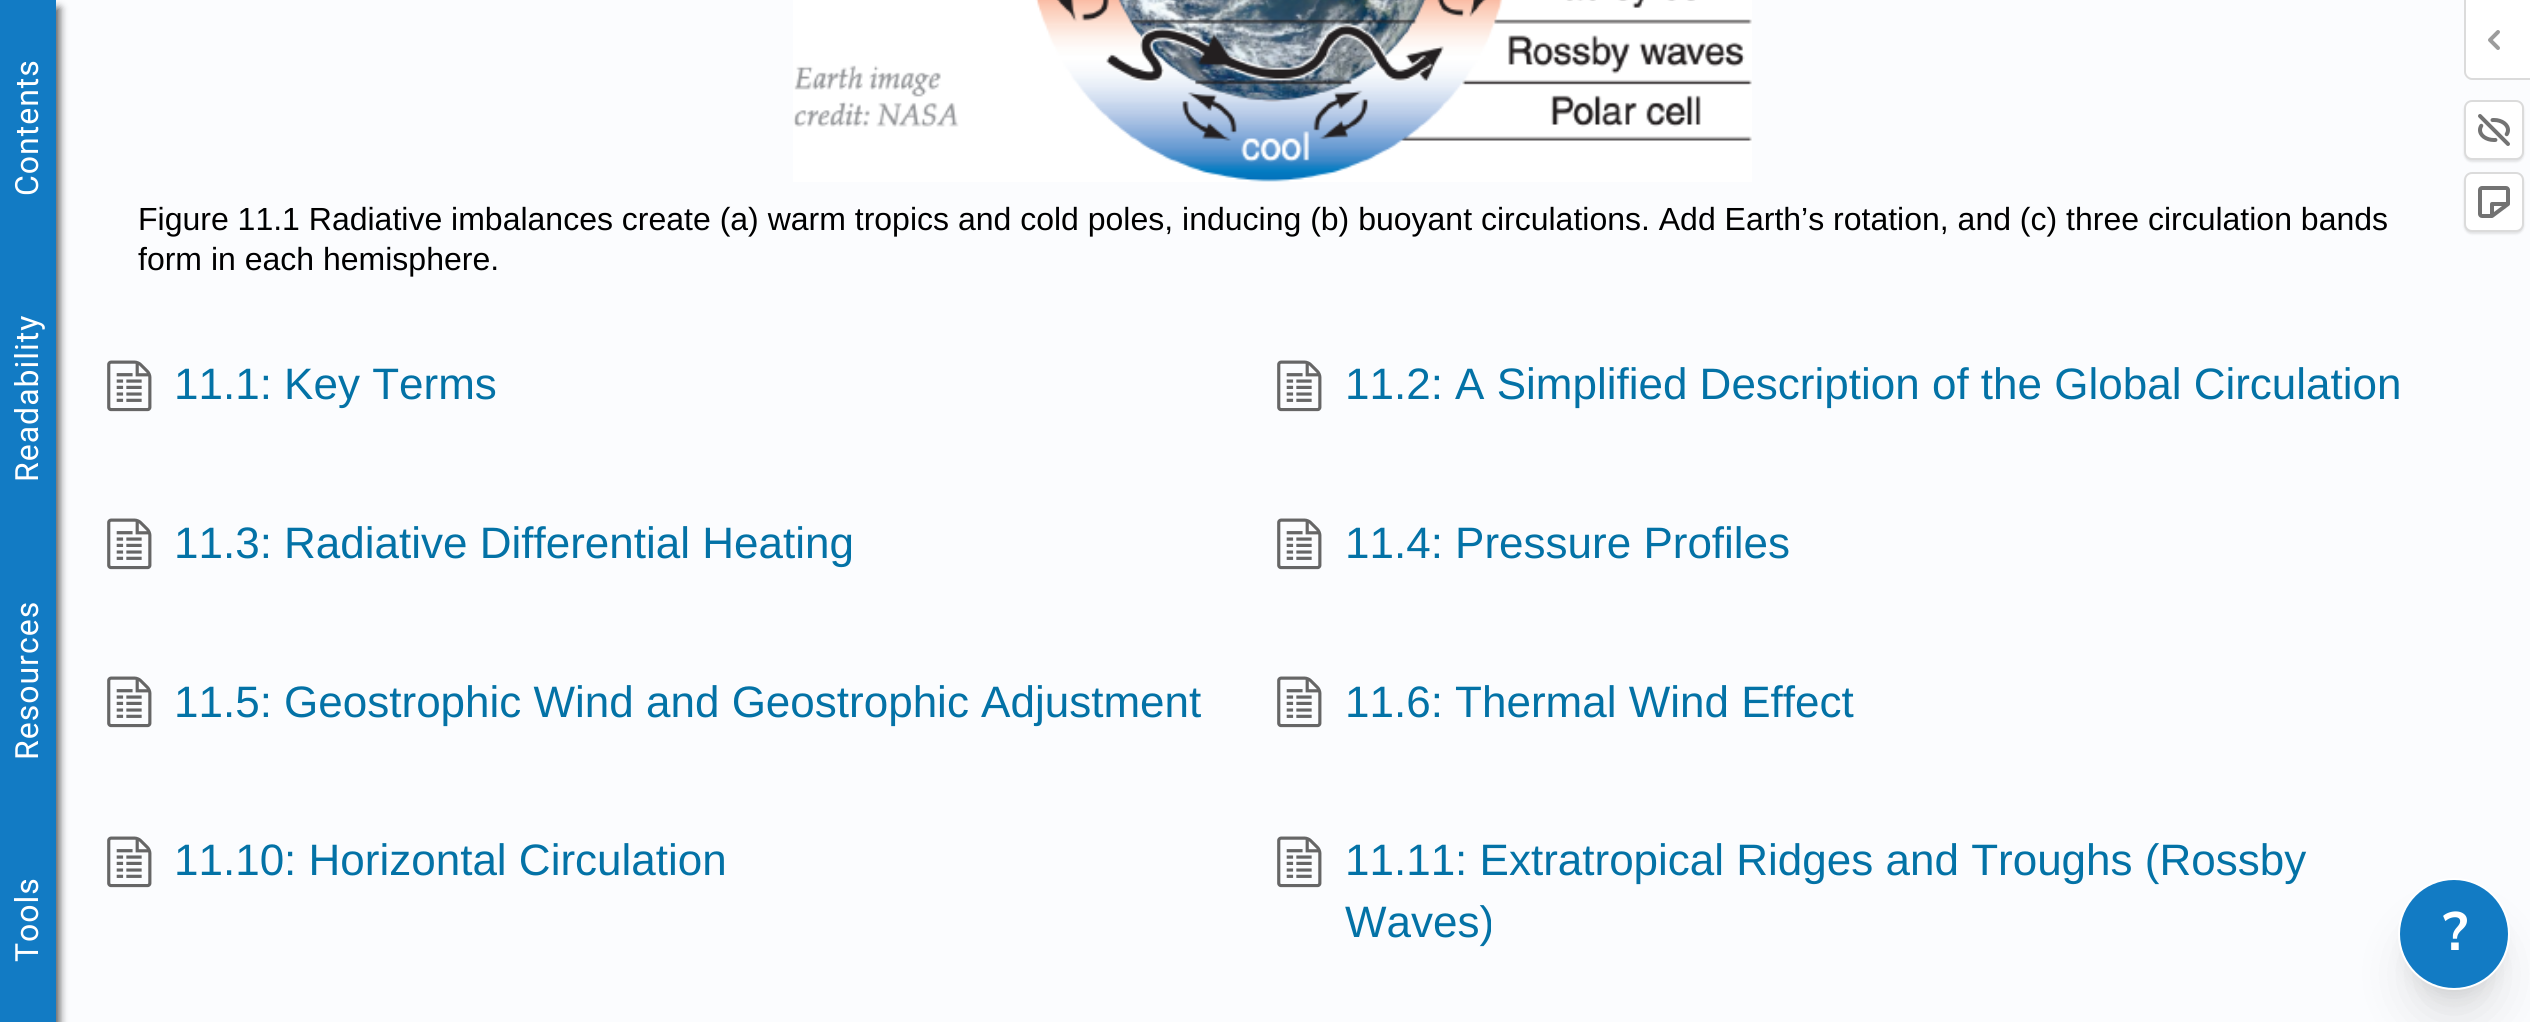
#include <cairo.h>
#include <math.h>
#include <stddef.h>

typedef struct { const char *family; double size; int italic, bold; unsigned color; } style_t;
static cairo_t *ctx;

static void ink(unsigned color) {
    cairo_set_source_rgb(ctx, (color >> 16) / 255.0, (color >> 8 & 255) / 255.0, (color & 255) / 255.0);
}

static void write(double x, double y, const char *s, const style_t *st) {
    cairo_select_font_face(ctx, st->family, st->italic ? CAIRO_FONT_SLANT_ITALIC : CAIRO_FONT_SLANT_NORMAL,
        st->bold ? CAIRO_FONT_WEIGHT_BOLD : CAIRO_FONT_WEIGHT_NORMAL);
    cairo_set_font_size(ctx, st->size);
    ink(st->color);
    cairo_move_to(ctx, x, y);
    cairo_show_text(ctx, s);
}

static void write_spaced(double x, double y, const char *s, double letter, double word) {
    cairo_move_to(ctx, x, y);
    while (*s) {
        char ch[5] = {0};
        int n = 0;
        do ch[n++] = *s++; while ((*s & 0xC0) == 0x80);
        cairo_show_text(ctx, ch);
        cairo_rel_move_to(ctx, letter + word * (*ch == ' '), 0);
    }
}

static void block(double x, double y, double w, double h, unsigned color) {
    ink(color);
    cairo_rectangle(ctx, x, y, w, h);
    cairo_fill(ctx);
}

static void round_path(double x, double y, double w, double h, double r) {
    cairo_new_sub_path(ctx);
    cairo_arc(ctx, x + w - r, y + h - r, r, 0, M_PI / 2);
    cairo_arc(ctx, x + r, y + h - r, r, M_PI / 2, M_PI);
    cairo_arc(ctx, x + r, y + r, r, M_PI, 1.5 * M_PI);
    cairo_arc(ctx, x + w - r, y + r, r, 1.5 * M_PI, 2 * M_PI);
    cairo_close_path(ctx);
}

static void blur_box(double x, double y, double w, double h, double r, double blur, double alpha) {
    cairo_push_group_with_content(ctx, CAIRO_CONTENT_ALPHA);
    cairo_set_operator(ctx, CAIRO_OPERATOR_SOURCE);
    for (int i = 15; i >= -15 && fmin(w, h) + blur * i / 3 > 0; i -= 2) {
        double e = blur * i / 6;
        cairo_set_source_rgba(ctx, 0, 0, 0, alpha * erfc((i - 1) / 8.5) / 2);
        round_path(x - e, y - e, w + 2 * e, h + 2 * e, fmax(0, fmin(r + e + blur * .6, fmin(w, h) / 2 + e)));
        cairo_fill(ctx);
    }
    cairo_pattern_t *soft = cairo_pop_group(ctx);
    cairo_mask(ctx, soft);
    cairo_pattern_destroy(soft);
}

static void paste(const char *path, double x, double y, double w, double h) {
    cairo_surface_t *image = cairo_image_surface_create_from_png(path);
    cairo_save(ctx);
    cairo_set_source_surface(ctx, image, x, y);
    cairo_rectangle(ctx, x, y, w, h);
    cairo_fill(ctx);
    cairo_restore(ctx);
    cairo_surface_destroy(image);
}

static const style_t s1 = {"Liberation Sans", 32, 0, 0, 0x000000};
static const style_t s2 = {"Liberation Sans", 44, 0, 0, 0x0372a6};
static const style_t s3 = {"Nunito Sans", 54, 0, 1, 0xffffff};

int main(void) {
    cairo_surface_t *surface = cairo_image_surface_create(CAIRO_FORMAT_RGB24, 2530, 1022);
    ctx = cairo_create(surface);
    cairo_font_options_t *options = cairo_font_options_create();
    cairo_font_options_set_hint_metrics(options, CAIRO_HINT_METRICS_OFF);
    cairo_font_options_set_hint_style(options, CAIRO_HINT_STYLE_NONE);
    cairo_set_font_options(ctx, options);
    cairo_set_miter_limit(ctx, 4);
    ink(0xfbfcfe);
    cairo_paint(ctx);
    ink(0x000000);
    blur_box(4, 8, 56, 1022, 0, 4, 0.6);
    block(0, 0, 56, 1022, 0x127bc4);
    cairo_select_font_face(ctx, "Roboto", CAIRO_FONT_SLANT_NORMAL, CAIRO_FONT_WEIGHT_NORMAL);
    cairo_set_font_size(ctx, 32);
    ink(0xffffff);
    cairo_save(ctx);
    cairo_translate(ctx, 38, 196);
    cairo_rotate(ctx, -90 * M_PI / 180);
    write_spaced(0, 0, "Contents", 1, 0);
    cairo_restore(ctx);
    cairo_save(ctx);
    cairo_translate(ctx, 38, 482);
    cairo_rotate(ctx, -90 * M_PI / 180);
    write_spaced(0, 0, "Readability", 1, 0);
    cairo_restore(ctx);
    cairo_save(ctx);
    cairo_translate(ctx, 38, 760);
    cairo_rotate(ctx, -90 * M_PI / 180);
    write_spaced(0, 0, "Resources", 1, 0);
    cairo_restore(ctx);
    cairo_save(ctx);
    cairo_translate(ctx, 38, 962);
    cairo_rotate(ctx, -90 * M_PI / 180);
    write_spaced(0, 0, "Tools", 1, 0);
    cairo_restore(ctx);
    paste("pic1.png", 793, 0, 959, 182);
    write(138, 230, "Figure 11.1 Radiative imbalances create (a) warm tropics and cold poles, inducing (b) buoyant circulations. Add Earth’s rotation, and (c) three circulation bands", &s1);
    write(138, 270, "form in each hemisphere.", &s1);
    paste("pic2.png", 107, 360, 45, 52);
    write(174, 399, "11.1: Key Terms", &s2);
    paste("pic2.png", 1277, 360, 45, 52);
    write(1345, 399, "11.2: A Simplified Description of the Global Circulation", &s2);
    paste("pic2.png", 107, 518, 45, 52);
    write(174, 558, "11.3: Radiative Differential Heating", &s2);
    paste("pic2.png", 1277, 518, 45, 52);
    write(1345, 558, "11.4: Pressure Profiles", &s2);
    paste("pic2.png", 107, 676, 45, 52);
    write(174, 717, "11.5: Geostrophic Wind and Geostrophic Adjustment", &s2);
    paste("pic2.png", 1277, 676, 45, 52);
    write(1345, 717, "11.6: Thermal Wind Effect", &s2);
    paste("pic2.png", 107, 836, 45, 52);
    write(174, 875, "11.10: Horizontal Circulation", &s2);
    paste("pic2.png", 1277, 836, 45, 52);
    write(1345, 875, "11.11: Extratropical Ridges and Troughs (Rossby", &s2);
    write(1345, 937, "Waves)", &s2);
    ink(0x000000);
    blur_box(2410, 906, 88, 88, 44, 10, 0.1);
    blur_box(2408, 928, 92, 92, 46, 25, 0.1);
    ink(0x127bc4);
    cairo_arc(ctx, 2454, 934, 55, 0, 2 * M_PI);
    cairo_fill_preserve(ctx);
    ink(0xffffff);
    cairo_stroke(ctx);
    write(2443, 950, "?", &s3);
    cairo_new_path(ctx);
    cairo_move_to(ctx, 2466, 0);
    cairo_line_to(ctx, 2530, 0);
    cairo_line_to(ctx, 2530, 78);
    cairo_line_to(ctx, 2472, 78);
    cairo_curve_to(ctx, 2468.5, 78, 2466, 75.5, 2466, 72);
    cairo_close_path(ctx);
    cairo_fill(ctx);
    ink(0xdbdbdb);
    cairo_set_fill_rule(ctx, CAIRO_FILL_RULE_EVEN_ODD);
    cairo_new_path(ctx);
    cairo_move_to(ctx, 2464, 0);
    cairo_line_to(ctx, 2530, 0);
    cairo_line_to(ctx, 2530, 80);
    cairo_line_to(ctx, 2472, 80);
    cairo_curve_to(ctx, 2468, 80, 2464, 76, 2464, 72);
    cairo_close_path(ctx);
    cairo_move_to(ctx, 2466, 0);
    cairo_line_to(ctx, 2530, 0);
    cairo_line_to(ctx, 2530, 78);
    cairo_line_to(ctx, 2472, 78);
    cairo_curve_to(ctx, 2469, 78, 2466, 75, 2466, 72);
    cairo_close_path(ctx);
    cairo_fill(ctx);
    paste("pic3.png", 2488, 30, 12, 20);
    ink(0x000000);
    blur_box(2464, 102, 60, 60, 8, 1, 0.1);
    ink(0xffffff);
    round_path(2465, 101, 58, 58, 7);
    cairo_fill_preserve(ctx);
    ink(0xdbdbdb);
    cairo_stroke(ctx);
    paste("pic4.png", 2478, 114, 32, 32);
    ink(0x000000);
    blur_box(2464, 174, 60, 60, 8, 1, 0.1);
    ink(0xffffff);
    round_path(2465, 173, 58, 58, 7);
    cairo_fill_preserve(ctx);
    ink(0xdbdbdb);
    cairo_stroke(ctx);
    paste("pic5.png", 2478, 186, 32, 32);
    cairo_surface_write_to_png(surface, "screenshot.png");
    cairo_font_options_destroy(options);
    cairo_destroy(ctx);
    cairo_surface_destroy(surface);
    return 0;
}
